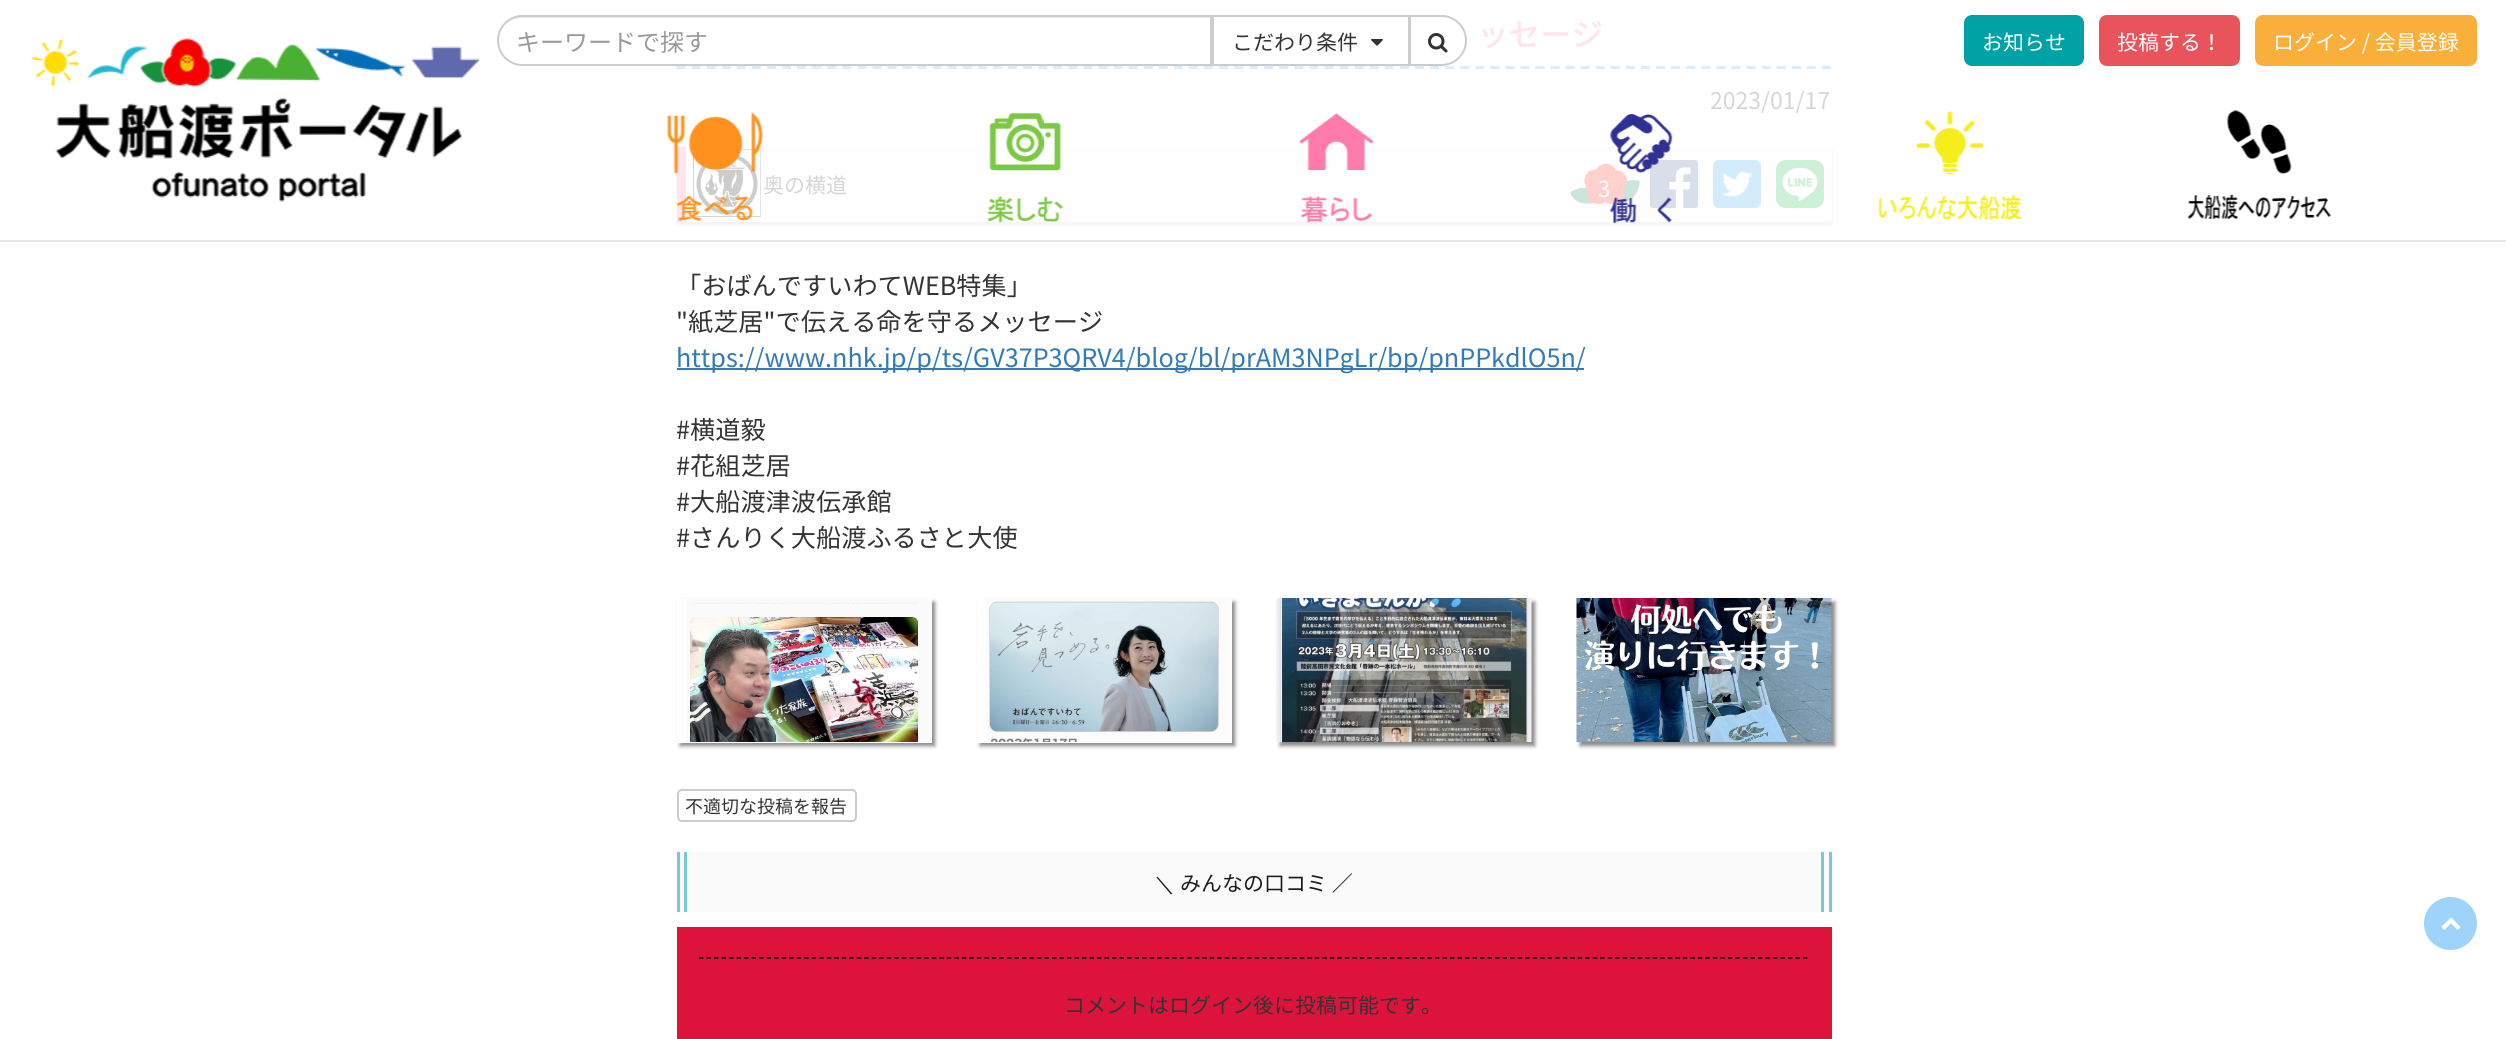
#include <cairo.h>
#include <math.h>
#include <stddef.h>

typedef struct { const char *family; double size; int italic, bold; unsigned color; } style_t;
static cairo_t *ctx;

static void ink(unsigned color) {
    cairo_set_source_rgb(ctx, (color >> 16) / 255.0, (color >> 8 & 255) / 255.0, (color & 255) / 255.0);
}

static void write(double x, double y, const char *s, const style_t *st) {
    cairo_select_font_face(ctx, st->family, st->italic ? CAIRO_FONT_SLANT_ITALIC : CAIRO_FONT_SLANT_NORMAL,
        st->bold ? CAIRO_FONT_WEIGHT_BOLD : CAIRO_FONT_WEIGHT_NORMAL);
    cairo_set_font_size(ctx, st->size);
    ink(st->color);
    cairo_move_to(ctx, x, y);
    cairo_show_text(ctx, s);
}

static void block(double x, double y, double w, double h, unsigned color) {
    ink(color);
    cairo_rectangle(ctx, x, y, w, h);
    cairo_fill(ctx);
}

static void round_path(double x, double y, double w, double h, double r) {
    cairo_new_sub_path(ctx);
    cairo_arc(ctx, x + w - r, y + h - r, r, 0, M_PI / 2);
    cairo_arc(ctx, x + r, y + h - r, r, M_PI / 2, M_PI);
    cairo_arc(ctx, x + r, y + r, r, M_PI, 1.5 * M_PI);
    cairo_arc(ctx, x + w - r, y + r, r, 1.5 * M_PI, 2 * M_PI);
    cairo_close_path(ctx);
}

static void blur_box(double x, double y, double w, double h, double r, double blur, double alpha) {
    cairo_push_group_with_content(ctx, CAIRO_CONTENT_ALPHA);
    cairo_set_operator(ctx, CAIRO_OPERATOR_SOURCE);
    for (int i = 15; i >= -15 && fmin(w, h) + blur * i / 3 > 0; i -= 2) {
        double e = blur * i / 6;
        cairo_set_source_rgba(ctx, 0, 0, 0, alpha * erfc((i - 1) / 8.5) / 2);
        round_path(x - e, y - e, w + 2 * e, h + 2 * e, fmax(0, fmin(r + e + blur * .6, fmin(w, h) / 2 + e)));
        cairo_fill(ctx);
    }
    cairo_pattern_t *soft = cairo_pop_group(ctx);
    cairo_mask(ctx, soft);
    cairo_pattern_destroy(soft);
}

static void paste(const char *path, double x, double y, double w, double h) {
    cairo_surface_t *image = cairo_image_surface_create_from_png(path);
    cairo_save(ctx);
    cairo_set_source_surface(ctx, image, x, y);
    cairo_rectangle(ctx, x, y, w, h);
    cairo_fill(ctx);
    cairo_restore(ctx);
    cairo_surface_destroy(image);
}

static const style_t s1 = {"Noto Sans JP Medium", 31.5, 0, 0, 0xffe4ec};
static const style_t s2 = {"Noto Sans JP", 23, 0, 0, 0xd6d6d6};
static const style_t s3 = {"Noto Sans JP", 21, 0, 0, 0xd6d6d6};
static const style_t s4 = {"Noto Sans JP", 22, 0, 0, 0xffffff};
static const style_t s5 = {"Noto Sans JP", 25.2, 0, 0, 0x333333};
static const style_t s6 = {"Noto Sans JP", 25.2, 0, 0, 0x337ab7};
static const style_t s7 = {"Noto Sans JP", 18, 0, 0, 0x333333};
static const style_t s8 = {"WenQuanYi Zen Hei Medium", 21, 0, 0, 0x1c1c1c};
static const style_t s9 = {"Noto Sans JP", 21, 0, 0, 0x1c1c1c};
static const style_t s10 = {"Noto Sans JP", 21, 0, 0, 0x333333};
static const style_t s11 = {"Noto Sans JP", 24, 0, 0, 0x999999};
static const style_t s12 = {"Noto Sans JP", 21, 0, 0, 0xffffff};

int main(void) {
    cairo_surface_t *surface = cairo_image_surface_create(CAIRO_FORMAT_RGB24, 2506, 1039);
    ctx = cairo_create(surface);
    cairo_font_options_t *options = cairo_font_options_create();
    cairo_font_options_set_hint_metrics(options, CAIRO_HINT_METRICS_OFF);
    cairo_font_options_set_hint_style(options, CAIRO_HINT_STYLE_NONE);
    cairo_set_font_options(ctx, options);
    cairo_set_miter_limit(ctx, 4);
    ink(0xffffff);
    cairo_paint(ctx);
    cairo_new_path(ctx);
    cairo_move_to(ctx, 676.5, 67.5);
    cairo_line_to(ctx, 1831.5, 67.5);
    ink(0xd9edfc);
    cairo_set_line_width(ctx, 3);
    cairo_set_dash(ctx, (double[]){9, 6.07}, 2, 0);
    cairo_stroke(ctx);
    write(1477, 46, "ッセージ", &s1);
    write(1710, 109, "2023/01/17", &s2);
    ink(0xdadada);
    blur_box(677, 150, 1155, 75, 0, 2, 0.3);
    block(686, 149, 1146, 73, 0xfefefe);
    block(677, 147, 9, 75, 0xffe5ee);
    paste("pic1.png", 693, 149, 68, 68);
    write(763, 193, "奥の横道", &s3);
    paste("pic2.png", 1570, 163, 70, 42);
    write(1598, 197, "3", &s4);
    paste("pic3.png", 1650, 160, 48, 48);
    paste("pic4.png", 1713, 160, 48, 48);
    paste("pic5.png", 1776, 160, 48, 48);
    write(676, 295, "「おばんですいわてWEB特集」", &s5);
    write(676, 331, "\"紙芝居\"で伝える命を守るメッセージ", &s5);
    block(677, 368, 907, 2, 0x337ab7);
    write(676, 367, "https://www.nhk.jp/p/ts/GV37P3QRV4/blog/bl/prAM3NPgLr/bp/pnPPkdlO5n/", &s6);
    write(676, 439, "#横道毅", &s5);
    write(676, 475, "#花組芝居", &s5);
    write(676, 511, "#大船渡津波伝承館", &s5);
    write(676, 547, "#さんりく大船渡ふるさと大使", &s5);
    cairo_save(ctx);
    cairo_set_fill_rule(ctx, CAIRO_FILL_RULE_EVEN_ODD);
    cairo_new_path(ctx);
    cairo_move_to(ctx, 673, 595);
    cairo_line_to(ctx, 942, 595);
    cairo_line_to(ctx, 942, 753);
    cairo_line_to(ctx, 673, 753);
    cairo_close_path(ctx);
    cairo_move_to(ctx, 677, 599);
    cairo_line_to(ctx, 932, 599);
    cairo_line_to(ctx, 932, 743);
    cairo_line_to(ctx, 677, 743);
    cairo_close_path(ctx);
    cairo_clip(ctx);
    ink(0x888888);
    blur_box(680, 602, 255, 144, 0, 2, 1);
    cairo_restore(ctx);
    paste("pic6.png", 686, 599, 246, 143);
    cairo_save(ctx);
    cairo_set_fill_rule(ctx, CAIRO_FILL_RULE_EVEN_ODD);
    cairo_new_path(ctx);
    cairo_move_to(ctx, 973, 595);
    cairo_line_to(ctx, 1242, 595);
    cairo_line_to(ctx, 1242, 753);
    cairo_line_to(ctx, 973, 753);
    cairo_close_path(ctx);
    cairo_move_to(ctx, 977, 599);
    cairo_line_to(ctx, 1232, 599);
    cairo_line_to(ctx, 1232, 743);
    cairo_line_to(ctx, 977, 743);
    cairo_close_path(ctx);
    cairo_clip(ctx);
    ink(0x888888);
    blur_box(980, 602, 255, 144, 0, 2, 1);
    cairo_restore(ctx);
    paste("pic7.png", 986, 599, 246, 143);
    ink(0x888888);
    blur_box(1280, 602, 255, 144, 0, 2, 1);
    paste("pic8.png", 1276, 598, 256, 144);
    blur_box(1580, 602, 255, 144, 0, 2, 1);
    paste("pic9.png", 1576, 598, 256, 144);
    round_path(678, 790, 178, 31, 4);
    ink(0xcccccc);
    cairo_set_line_width(ctx, 2);
    cairo_set_dash(ctx, NULL, 0, 0);
    cairo_stroke(ctx);
    write(685, 813, "不適切な投稿を報告", &s7);
    block(680, 852, 1149, 60, 0xfafafa);
    block(1821, 852, 3, 60, 0x77c9d4);
    block(1829, 852, 3, 60, 0x77c9d4);
    block(677, 852, 3, 60, 0x77c9d4);
    block(684, 852, 3, 60, 0x77c9d4);
    write(1154, 891, "＼", &s8);
    write(1180, 891, "みんなの口コミ ／", &s9);
    block(677, 927, 1155, 112, 0xdc143c);
    cairo_new_path(ctx);
    cairo_move_to(ctx, 699, 958);
    cairo_line_to(ctx, 1809, 958);
    ink(0x000000);
    cairo_set_line_width(ctx, 1.5);
    cairo_set_dash(ctx, (double[]){4.5, 3.01}, 2, 0);
    cairo_stroke(ctx);
    write(1064, 1013, "コメントはログイン後に投稿可能です。", &s10);
    ink(0x9fd4fa);
    cairo_new_path(ctx);
    cairo_arc(ctx, 2450.5, 923.5, 26.5, 0, 2 * M_PI);
    cairo_fill(ctx);
    paste("pic10.png", 2441, 917, 20, 13);
    block(0, 240, 2506, 2, 0xe7e7e7);
    paste("pic11.png", 31, 38, 450, 164);
    ink(0xececec);
    cairo_new_path(ctx);
    cairo_move_to(ctx, 522, 18);
    cairo_line_to(ctx, 1210, 18);
    cairo_line_to(ctx, 1210, 65);
    cairo_line_to(ctx, 1211, 65);
    cairo_line_to(ctx, 1211, 17);
    cairo_line_to(ctx, 522, 17);
    cairo_curve_to(ctx, 509, 17, 498, 28, 498, 41);
    cairo_curve_to(ctx, 498, 30, 506, 18, 522, 18);
    cairo_close_path(ctx);
    cairo_fill(ctx);
    cairo_new_path(ctx);
    cairo_move_to(ctx, 522.5, 16);
    cairo_line_to(ctx, 1211, 16);
    cairo_line_to(ctx, 1211, 65);
    cairo_line_to(ctx, 522.5, 65);
    cairo_curve_to(ctx, 509, 65, 498, 54, 498, 40.5);
    cairo_curve_to(ctx, 498, 27, 509, 16, 522.5, 16);
    cairo_close_path(ctx);
    ink(0xcccccc);
    cairo_set_line_width(ctx, 2);
    cairo_set_dash(ctx, NULL, 0, 0);
    cairo_stroke(ctx);
    write(516, 51, "キーワードで探す", &s11);
    cairo_rectangle(ctx, 1213, 16, 196, 49);
    ink(0xcccccc);
    cairo_stroke(ctx);
    write(1232, 50, "こだわり条件", &s10);
    paste("pic12.png", 1371, 39, 12, 7);
    ink(0xffffff);
    cairo_new_path(ctx);
    cairo_move_to(ctx, 1410, 16);
    cairo_line_to(ctx, 1441.5, 16);
    cairo_curve_to(ctx, 1455, 16, 1466, 27, 1466, 40.5);
    cairo_curve_to(ctx, 1466, 54, 1455, 65, 1441.5, 65);
    cairo_line_to(ctx, 1410, 65);
    cairo_close_path(ctx);
    cairo_fill_preserve(ctx);
    ink(0xcccccc);
    cairo_stroke(ctx);
    paste("pic13.png", 1428, 33, 20, 20);
    ink(0x00a2a6);
    round_path(1965.5, 16.5, 117, 48, 6.5);
    cairo_fill_preserve(ctx);
    cairo_set_line_width(ctx, 3);
    cairo_stroke(ctx);
    write(1982, 50, "お知らせ", &s12);
    ink(0xe9545c);
    round_path(2100.5, 16.5, 138, 48, 6.5);
    cairo_fill_preserve(ctx);
    cairo_stroke(ctx);
    write(2117, 50, "投稿する！", &s12);
    ink(0xfaaf3b);
    round_path(2256.5, 16.5, 219, 48, 6.5);
    cairo_fill_preserve(ctx);
    cairo_stroke(ctx);
    write(2273, 50, "ログイン / 会員登録", &s12);
    paste("pic14.png", 667, 112, 96, 110);
    paste("pic15.png", 987, 113, 77, 110);
    paste("pic16.png", 1299, 113, 75, 110);
    paste("pic17.png", 1609, 114, 64, 110);
    paste("pic18.png", 1878, 111, 144, 109);
    paste("pic19.png", 2187, 110, 145, 110);
    cairo_surface_write_to_png(surface, "screenshot.png");
    cairo_font_options_destroy(options);
    cairo_destroy(ctx);
    cairo_surface_destroy(surface);
    return 0;
}
